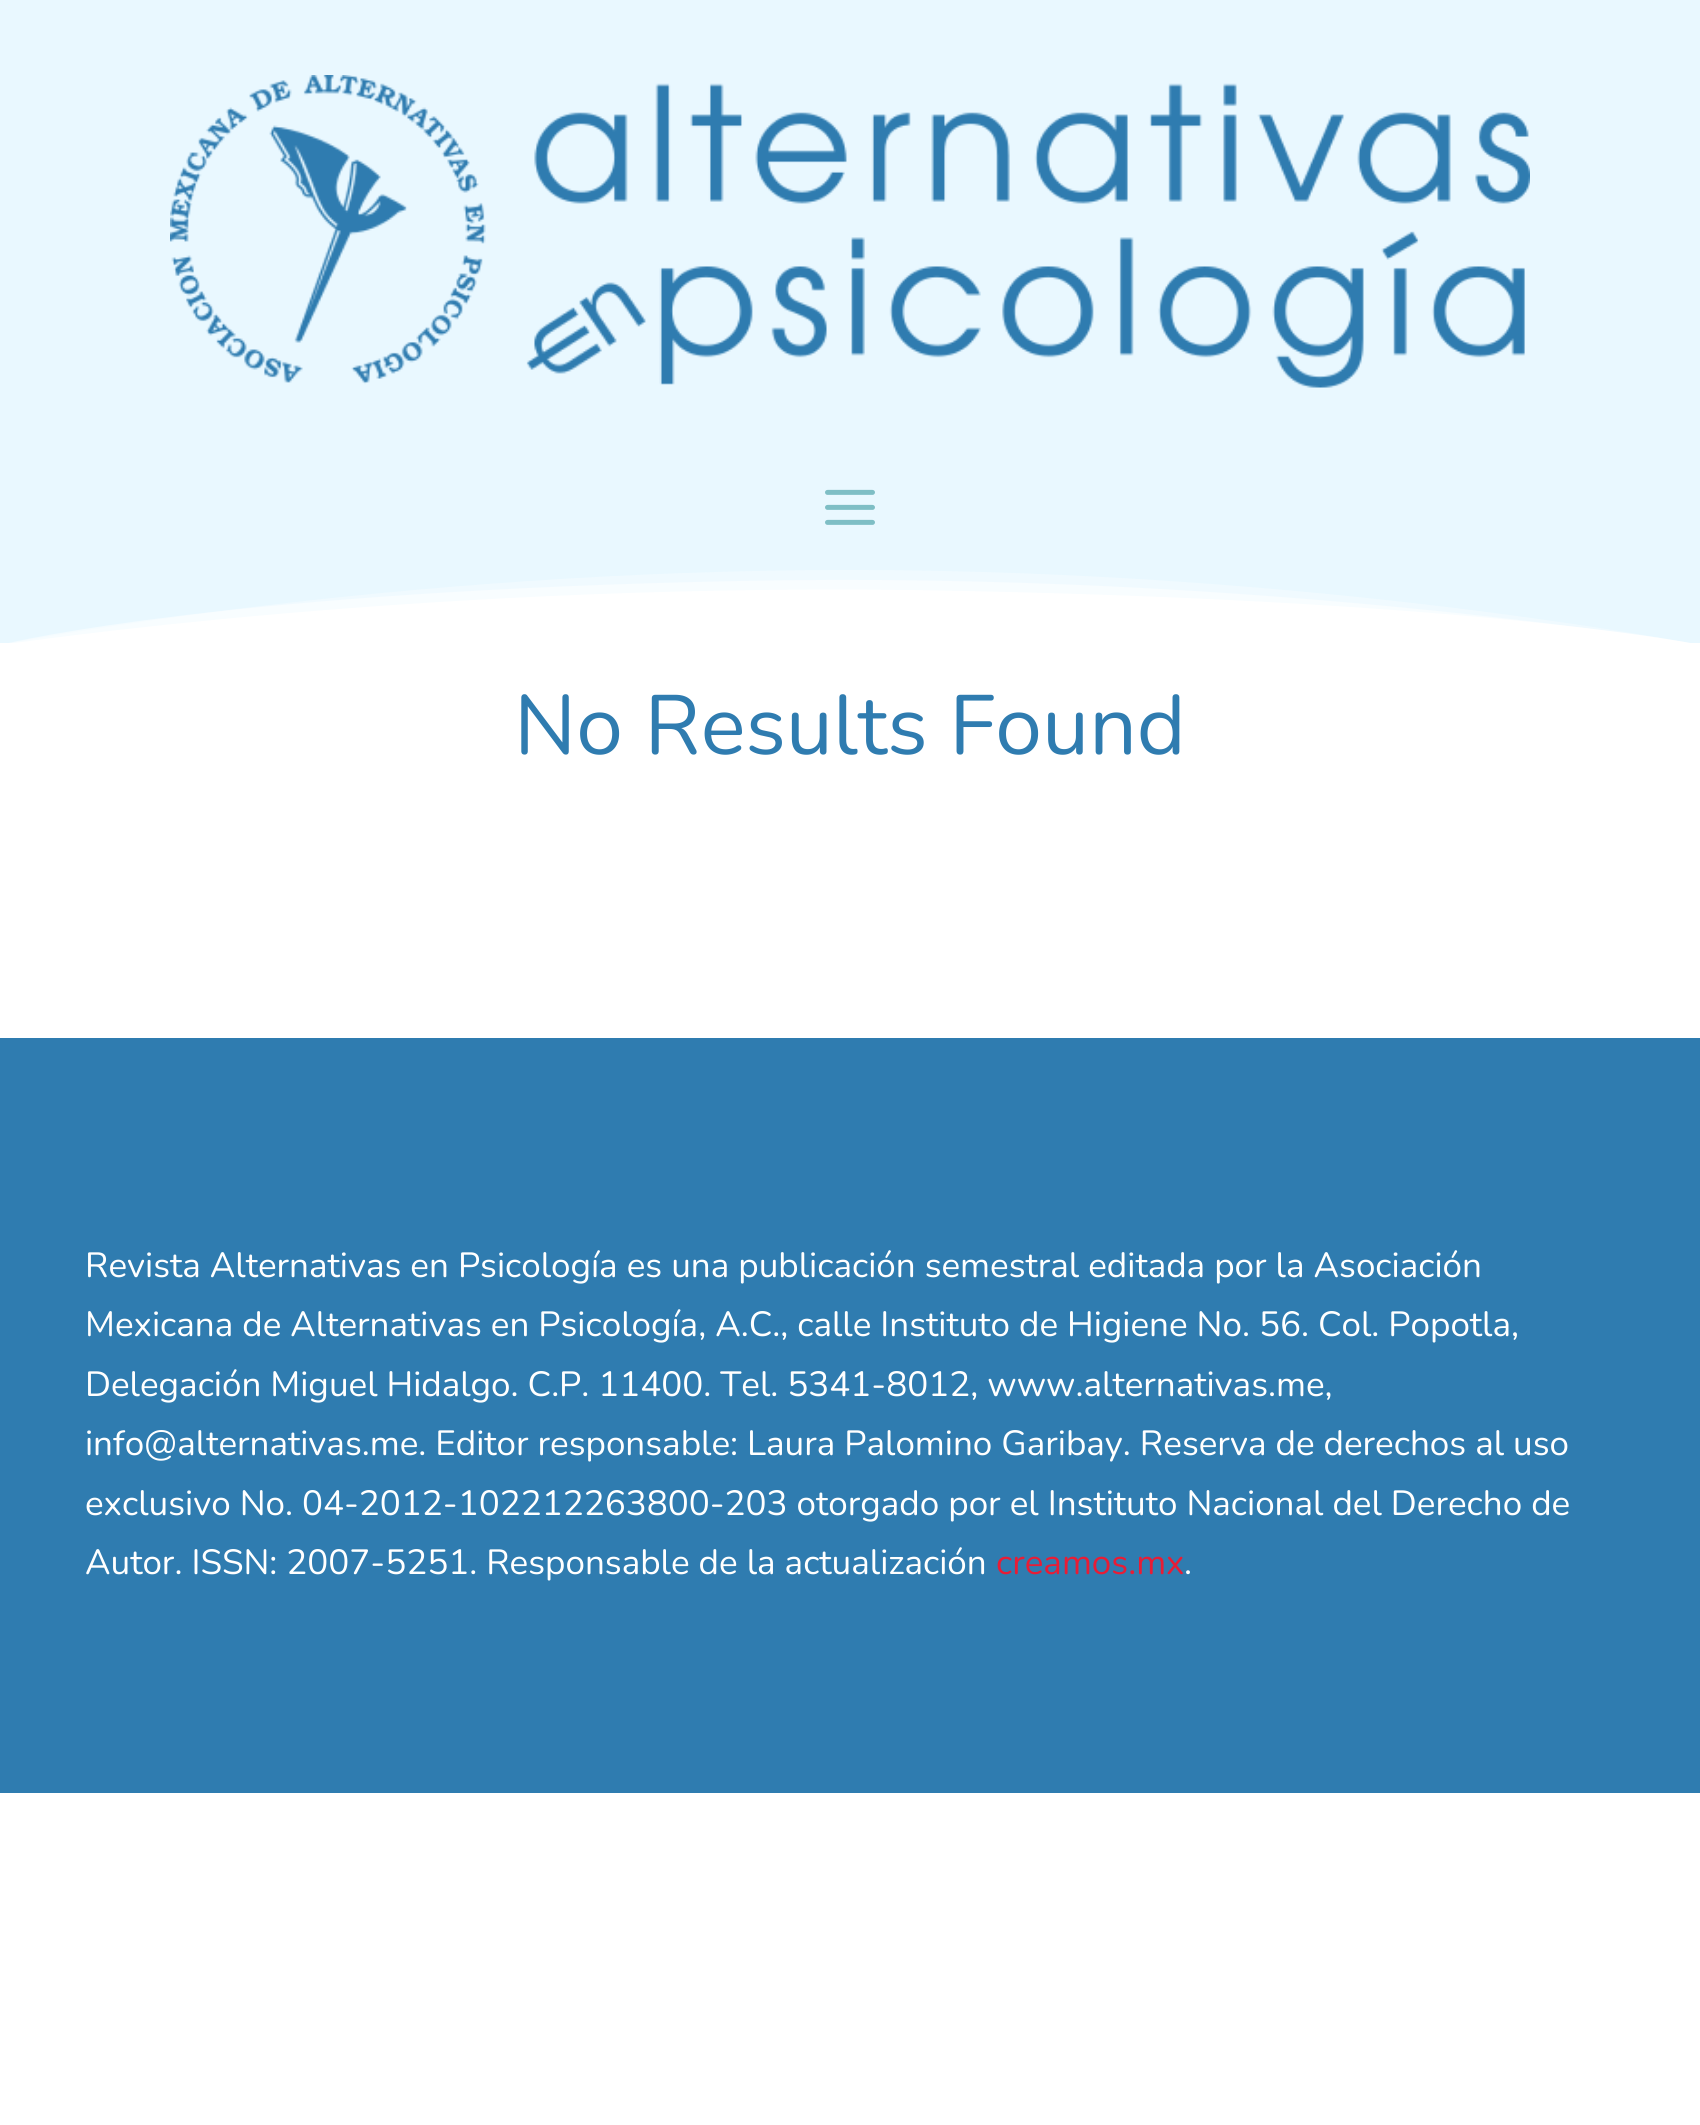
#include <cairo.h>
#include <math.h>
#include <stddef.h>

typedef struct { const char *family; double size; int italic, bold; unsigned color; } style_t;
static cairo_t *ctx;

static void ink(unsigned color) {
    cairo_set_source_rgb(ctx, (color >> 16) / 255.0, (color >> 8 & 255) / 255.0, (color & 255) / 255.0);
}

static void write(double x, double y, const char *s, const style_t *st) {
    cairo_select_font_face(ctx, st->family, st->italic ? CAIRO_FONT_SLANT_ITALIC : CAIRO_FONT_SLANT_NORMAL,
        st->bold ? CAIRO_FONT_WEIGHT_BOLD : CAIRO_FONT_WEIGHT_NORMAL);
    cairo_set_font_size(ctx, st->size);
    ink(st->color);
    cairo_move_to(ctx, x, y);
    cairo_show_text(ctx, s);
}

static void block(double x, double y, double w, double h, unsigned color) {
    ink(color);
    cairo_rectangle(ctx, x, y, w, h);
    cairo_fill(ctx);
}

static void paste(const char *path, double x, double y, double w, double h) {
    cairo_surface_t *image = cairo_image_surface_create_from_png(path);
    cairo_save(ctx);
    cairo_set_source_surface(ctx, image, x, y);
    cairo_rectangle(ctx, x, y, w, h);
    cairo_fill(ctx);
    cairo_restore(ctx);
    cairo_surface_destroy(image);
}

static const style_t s1 = {"Nunito", 84, 0, 0, 0x2f7cb0};
static const style_t s2 = {"Nunito", 35, 0, 0, 0xffffff};
static const style_t s3 = {"Nunito", 35, 0, 0, 0xe71d36};

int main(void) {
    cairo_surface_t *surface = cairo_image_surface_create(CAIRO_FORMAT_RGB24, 1700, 2125);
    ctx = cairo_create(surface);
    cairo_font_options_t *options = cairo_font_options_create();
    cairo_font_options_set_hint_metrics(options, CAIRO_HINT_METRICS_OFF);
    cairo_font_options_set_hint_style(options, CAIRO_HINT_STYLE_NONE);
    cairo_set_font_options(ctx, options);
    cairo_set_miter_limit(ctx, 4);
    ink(0xffffff);
    cairo_paint(ctx);
    block(0, 0, 1700, 643, 0xe9f8ff);
    paste("pic1.png", 170, 75, 1360, 313);
    paste("pic2.png", 825, 489, 50, 36);
    cairo_save(ctx);
    cairo_rectangle(ctx, 0, 568, 1700, 75);
    cairo_clip(ctx);
    ink(0xf0faff);
    cairo_new_path(ctx);
    cairo_move_to(ctx, 0, 645);
    cairo_curve_to(ctx, 25, 640, 396, 570, 849, 570);
    cairo_curve_to(ctx, 1319, 570, 1700, 645, 1700, 645);
    cairo_close_path(ctx);
    cairo_fill(ctx);
    cairo_set_source_rgba(ctx, 1, 1, 1, 0.5);
    cairo_new_path(ctx);
    cairo_move_to(ctx, 0, 645);
    cairo_curve_to(ctx, 19, 640, 234, 591, 738, 581);
    cairo_curve_to(ctx, 1265, 570, 1700, 645, 1700, 645);
    cairo_close_path(ctx);
    cairo_fill(ctx);
    ink(0xffffff);
    cairo_new_path(ctx);
    cairo_move_to(ctx, 965, 591);
    cairo_curve_to(ctx, 1496, 602, 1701, 645, 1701, 645);
    cairo_line_to(ctx, 1, 645);
    cairo_curve_to(ctx, 1, 645, 433, 579, 965, 591);
    cairo_close_path(ctx);
    cairo_fill(ctx);
    cairo_restore(ctx);
    write(514, 754, "No Results Found", &s1);
    block(0, 1038, 1700, 755, 0x2f7cb0);
    write(85, 1277, "Revista Alternativas en Psicología es una publicación semestral editada por la Asociación", &s2);
    write(85, 1336, "Mexicana de Alternativas en Psicología, A.C., calle Instituto de Higiene No. 56. Col. Popotla,", &s2);
    write(85, 1396, "Delegación Miguel Hidalgo. C.P. 11400. Tel. 5341-8012, www.alternativas.me,", &s2);
    write(85, 1455, "info@alternativas.me. Editor responsable: Laura Palomino Garibay. Reserva de derechos al uso", &s2);
    write(85, 1515, "exclusivo No. 04-2012-102212263800-203 otorgado por el Instituto Nacional del Derecho de", &s2);
    write(85, 1574, "Autor. ISSN: 2007-5251. Responsable de la actualización", &s2);
    write(996, 1574, "creamos.mx", &s3);
    write(1184, 1574, ".", &s2);
    cairo_surface_write_to_png(surface, "screenshot.png");
    cairo_font_options_destroy(options);
    cairo_destroy(ctx);
    cairo_surface_destroy(surface);
    return 0;
}
